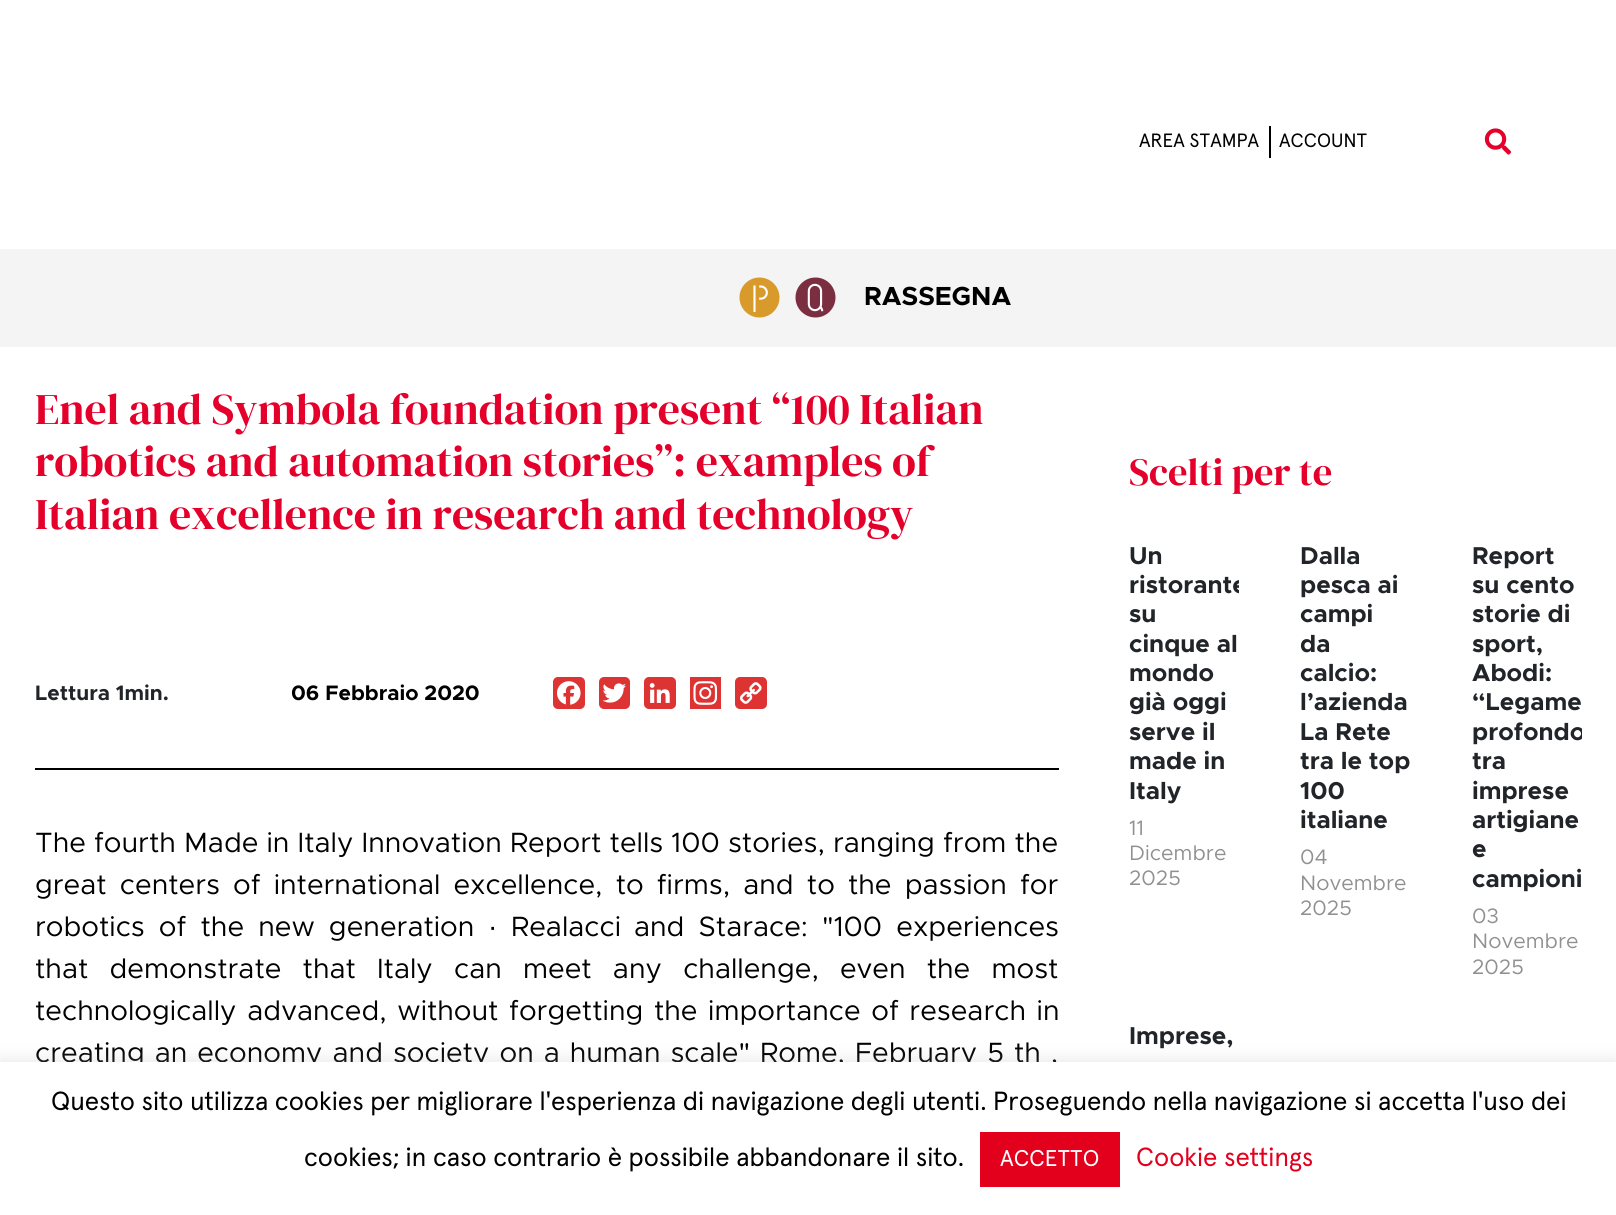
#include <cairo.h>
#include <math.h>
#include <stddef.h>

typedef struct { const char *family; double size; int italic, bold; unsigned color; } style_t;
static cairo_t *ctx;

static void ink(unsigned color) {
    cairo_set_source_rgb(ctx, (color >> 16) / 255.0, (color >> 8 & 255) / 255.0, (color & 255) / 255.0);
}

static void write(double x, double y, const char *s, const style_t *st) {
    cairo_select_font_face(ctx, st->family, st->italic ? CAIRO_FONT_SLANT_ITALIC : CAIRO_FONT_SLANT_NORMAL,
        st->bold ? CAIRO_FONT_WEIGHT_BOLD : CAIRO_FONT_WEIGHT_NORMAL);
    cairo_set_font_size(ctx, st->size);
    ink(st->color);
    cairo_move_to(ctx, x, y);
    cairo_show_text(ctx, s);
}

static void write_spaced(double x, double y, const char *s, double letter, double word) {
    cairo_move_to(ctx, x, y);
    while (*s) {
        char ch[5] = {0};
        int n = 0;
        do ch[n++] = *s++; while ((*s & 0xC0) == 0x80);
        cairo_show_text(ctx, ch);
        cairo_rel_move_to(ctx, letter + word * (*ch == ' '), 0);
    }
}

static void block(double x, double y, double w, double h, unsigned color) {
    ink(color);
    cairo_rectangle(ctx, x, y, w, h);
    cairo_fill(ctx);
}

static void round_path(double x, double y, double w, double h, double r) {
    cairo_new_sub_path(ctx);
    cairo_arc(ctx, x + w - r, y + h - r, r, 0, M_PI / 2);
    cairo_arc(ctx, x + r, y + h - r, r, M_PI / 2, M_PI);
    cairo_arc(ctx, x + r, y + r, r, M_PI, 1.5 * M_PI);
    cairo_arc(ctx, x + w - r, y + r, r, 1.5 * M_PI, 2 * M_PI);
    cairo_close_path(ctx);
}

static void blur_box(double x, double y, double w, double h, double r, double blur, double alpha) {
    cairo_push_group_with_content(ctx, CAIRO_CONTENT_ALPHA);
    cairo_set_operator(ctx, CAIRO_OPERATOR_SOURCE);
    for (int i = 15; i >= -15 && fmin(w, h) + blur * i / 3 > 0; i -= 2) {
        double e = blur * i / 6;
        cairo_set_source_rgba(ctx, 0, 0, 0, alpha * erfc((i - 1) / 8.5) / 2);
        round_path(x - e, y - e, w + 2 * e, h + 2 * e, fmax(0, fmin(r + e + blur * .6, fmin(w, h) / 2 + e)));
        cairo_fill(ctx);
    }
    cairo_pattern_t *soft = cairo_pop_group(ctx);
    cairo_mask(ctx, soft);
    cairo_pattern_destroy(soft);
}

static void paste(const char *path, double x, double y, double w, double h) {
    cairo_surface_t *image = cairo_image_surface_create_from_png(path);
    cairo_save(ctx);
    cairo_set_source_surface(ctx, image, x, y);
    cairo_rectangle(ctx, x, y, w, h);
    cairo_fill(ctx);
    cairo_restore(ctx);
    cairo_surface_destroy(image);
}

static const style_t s1 = {"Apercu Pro", 19.25, 0, 0, 0x000000};
static const style_t s2 = {"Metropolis", 26.25, 0, 1, 0x000000};
static const style_t s3 = {"DM Serif Display", 43.75, 0, 0, 0xe4002b};
static const style_t s4 = {"Metropolis", 21, 0, 1, 0x212529};
static const style_t s5 = {"Metropolis", 21, 0, 1, 0x000000};
static const style_t s6 = {"Metropolis", 28, 0, 0, 0x000000};
static const style_t s7 = {"Liberation Sans", 28, 0, 0, 0x000000};
static const style_t s8 = {"DM Serif Display", 38.5, 0, 0, 0xe4002b};
static const style_t s9 = {"Metropolis", 24.5, 0, 1, 0x212529};
static const style_t s10 = {"Metropolis", 21, 0, 0, 0x909090};
static const style_t s11 = {"Apercu Pro", 26.25, 0, 0, 0x000000};
static const style_t s12 = {"Apercu Pro", 22.75, 0, 0, 0xffffff};
static const style_t s13 = {"Apercu Pro", 26.25, 0, 0, 0xe2001d};

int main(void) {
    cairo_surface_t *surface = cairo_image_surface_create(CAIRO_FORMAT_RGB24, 1616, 1215);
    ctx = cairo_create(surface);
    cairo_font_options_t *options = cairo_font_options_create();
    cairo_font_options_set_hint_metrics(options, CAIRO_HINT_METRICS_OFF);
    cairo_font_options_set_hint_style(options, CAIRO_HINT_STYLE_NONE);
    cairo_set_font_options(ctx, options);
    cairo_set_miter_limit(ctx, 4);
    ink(0xffffff);
    cairo_paint(ctx);
    write(1139, 147, "AREA STAMPA", &s1);
    block(1269, 126, 2, 32, 0x000000);
    write(1279, 147, "ACCOUNT", &s1);
    paste("pic1.png", 1484, 128, 28, 27);
    block(0, 249, 1616, 98, 0xf4f4f4);
    paste("pic2.png", 739, 277, 41, 41);
    paste("pic3.png", 795, 277, 41, 41);
    write(864, 305, "RASSEGNA", &s2);
    write(35, 424, "Enel and Symbola foundation present “100 Italian", &s3);
    write(35, 476, "robotics and automation stories”: examples of", &s3);
    write(35, 529, "Italian excellence in research and technology", &s3);
    write(35, 700, "Lettura 1min.", &s4);
    write(291, 700, "06 Febbraio 2020", &s5);
    ink(0xdd3333);
    round_path(553, 677, 32, 32, 5);
    cairo_fill(ctx);
    paste("pic4.png", 557, 681, 24, 24);
    round_path(599, 677, 31, 32, 5);
    cairo_fill(ctx);
    paste("pic5.png", 602, 683, 24, 20);
    round_path(644, 677, 32, 32, 5);
    cairo_fill(ctx);
    paste("pic6.png", 649, 683, 21, 20);
    block(690, 677, 31, 32, 0xdd3333);
    paste("pic7.png", 693, 681, 25, 24);
    round_path(735, 677, 32, 32, 5);
    cairo_fill(ctx);
    paste("pic8.png", 740, 682, 22, 22);
    block(35, 768, 1024, 2, 0x000000);
    write(35, 852, "The fourth Made in Italy Innovation Report tells 100 stories, ranging from the", &s6);
    write_spaced(35, 894, "great centers of international excellence, to firms, and to the passion for", 0, 5);
    write_spaced(35, 936, "robotics of the new generation", 0, 6);
    write(488, 936, "·", &s7);
    write(511, 936, "Realacci", &s6);
    write_spaced(634, 936, "and Starace: \"100 experiences", 0, 6);
    write_spaced(35, 978, "that demonstrate that Italy can meet any challenge, even the most", 0, 13);
    write_spaced(35, 1020, "technologically advanced, without forgetting the importance of research in", 0, 2.5);
    write_spaced(35, 1062, "creating an economy and society on a human scale\" Rome, February 5 th ,", 0, 1.8);
    write(1129, 485, "Scelti per te", &s8);
    write(1129, 564, "Un", &s9);
    cairo_save(ctx);
    cairo_rectangle(ctx, 1094, 525, 145, 455);
    cairo_clip(ctx);
    write(1129, 593, "ristorante", &s9);
    cairo_restore(ctx);
    write(1129, 622, "su", &s9);
    write(1129, 652, "cinque al", &s9);
    write(1129, 681, "mondo", &s9);
    write(1129, 710, "già oggi", &s9);
    write(1129, 740, "serve il", &s9);
    write(1129, 769, "made in", &s9);
    write(1129, 799, "Italy", &s9);
    write(1129, 835, "11", &s10);
    write(1129, 860, "Dicembre", &s10);
    write(1129, 885, "2025", &s10);
    write(1300, 564, "Dalla", &s9);
    write(1300, 593, "pesca ai", &s9);
    write(1300, 622, "campi", &s9);
    write(1300, 652, "da", &s9);
    write(1300, 681, "calcio:", &s9);
    write(1300, 710, "l’azienda", &s9);
    write(1300, 740, "La Rete", &s9);
    write(1300, 769, "tra le top", &s9);
    write(1300, 799, "100", &s9);
    write(1300, 828, "italiane", &s9);
    write(1300, 864, "04", &s10);
    write(1300, 890, "Novembre", &s10);
    write(1300, 915, "2025", &s10);
    write(1472, 564, "Report", &s9);
    write(1472, 593, "su cento", &s9);
    write(1472, 622, "storie di", &s9);
    write(1472, 652, "sport,", &s9);
    write(1472, 681, "Abodi:", &s9);
    write(1472, 710, "“Legame", &s9);
    cairo_save(ctx);
    cairo_rectangle(ctx, 1437, 525, 145, 455);
    cairo_clip(ctx);
    write(1472, 740, "profondo", &s9);
    cairo_restore(ctx);
    write(1472, 769, "tra", &s9);
    write(1472, 799, "imprese", &s9);
    write(1472, 828, "artigiane", &s9);
    write(1472, 857, "e", &s9);
    write(1472, 887, "campioni", &s9);
    write(1472, 923, "03", &s10);
    write(1472, 948, "Novembre", &s10);
    write(1472, 974, "2025", &s10);
    write(1129, 1044, "Imprese,", &s9);
    ink(0xacabab);
    blur_box(0, 1061, 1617, 154, 0, 9, 0.3);
    block(0, 1062, 1616, 153, 0xffffff);
    write(51, 1110, "Questo sito utilizza cookies per migliorare l'esperienza di navigazione degli utenti. Proseguendo nella navigazione si accetta l'uso dei", &s11);
    write(304, 1166, "cookies; in caso contrario è possibile abbandonare il sito.", &s11);
    block(980, 1132, 140, 55, 0xe2001d);
    write(1000, 1166, "ACCETTO", &s12);
    write(1136, 1166, "Cookie settings", &s13);
    cairo_surface_write_to_png(surface, "screenshot.png");
    cairo_font_options_destroy(options);
    cairo_destroy(ctx);
    cairo_surface_destroy(surface);
    return 0;
}
